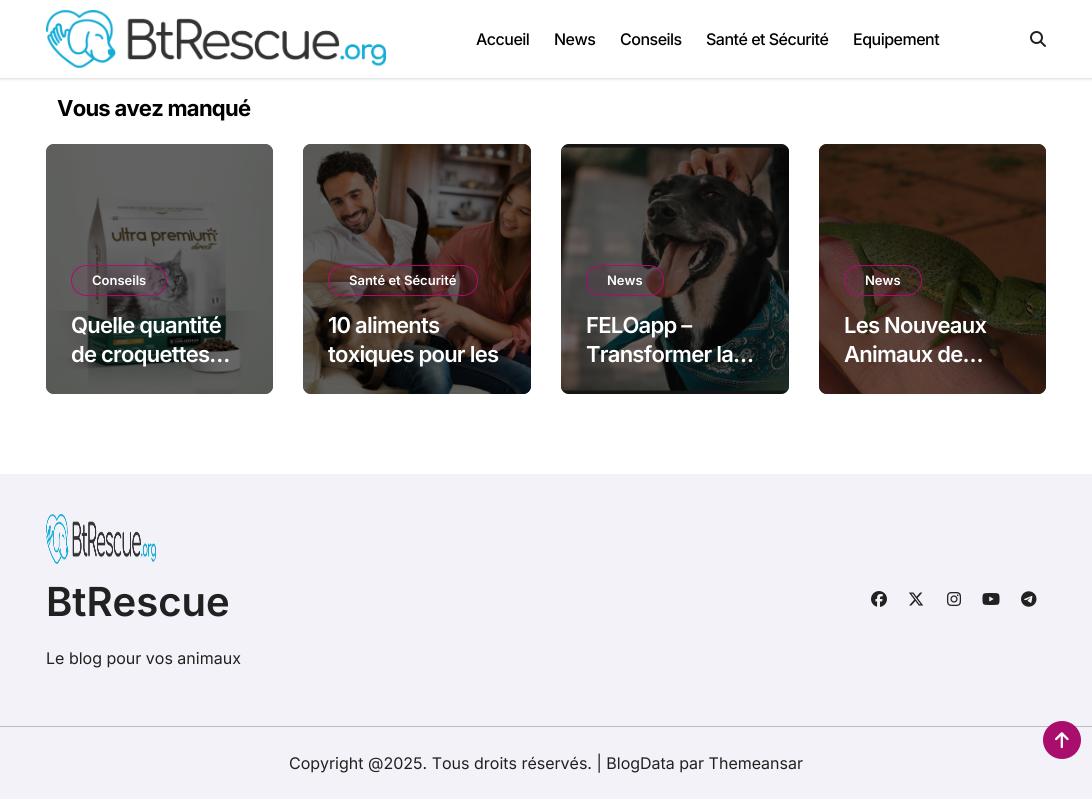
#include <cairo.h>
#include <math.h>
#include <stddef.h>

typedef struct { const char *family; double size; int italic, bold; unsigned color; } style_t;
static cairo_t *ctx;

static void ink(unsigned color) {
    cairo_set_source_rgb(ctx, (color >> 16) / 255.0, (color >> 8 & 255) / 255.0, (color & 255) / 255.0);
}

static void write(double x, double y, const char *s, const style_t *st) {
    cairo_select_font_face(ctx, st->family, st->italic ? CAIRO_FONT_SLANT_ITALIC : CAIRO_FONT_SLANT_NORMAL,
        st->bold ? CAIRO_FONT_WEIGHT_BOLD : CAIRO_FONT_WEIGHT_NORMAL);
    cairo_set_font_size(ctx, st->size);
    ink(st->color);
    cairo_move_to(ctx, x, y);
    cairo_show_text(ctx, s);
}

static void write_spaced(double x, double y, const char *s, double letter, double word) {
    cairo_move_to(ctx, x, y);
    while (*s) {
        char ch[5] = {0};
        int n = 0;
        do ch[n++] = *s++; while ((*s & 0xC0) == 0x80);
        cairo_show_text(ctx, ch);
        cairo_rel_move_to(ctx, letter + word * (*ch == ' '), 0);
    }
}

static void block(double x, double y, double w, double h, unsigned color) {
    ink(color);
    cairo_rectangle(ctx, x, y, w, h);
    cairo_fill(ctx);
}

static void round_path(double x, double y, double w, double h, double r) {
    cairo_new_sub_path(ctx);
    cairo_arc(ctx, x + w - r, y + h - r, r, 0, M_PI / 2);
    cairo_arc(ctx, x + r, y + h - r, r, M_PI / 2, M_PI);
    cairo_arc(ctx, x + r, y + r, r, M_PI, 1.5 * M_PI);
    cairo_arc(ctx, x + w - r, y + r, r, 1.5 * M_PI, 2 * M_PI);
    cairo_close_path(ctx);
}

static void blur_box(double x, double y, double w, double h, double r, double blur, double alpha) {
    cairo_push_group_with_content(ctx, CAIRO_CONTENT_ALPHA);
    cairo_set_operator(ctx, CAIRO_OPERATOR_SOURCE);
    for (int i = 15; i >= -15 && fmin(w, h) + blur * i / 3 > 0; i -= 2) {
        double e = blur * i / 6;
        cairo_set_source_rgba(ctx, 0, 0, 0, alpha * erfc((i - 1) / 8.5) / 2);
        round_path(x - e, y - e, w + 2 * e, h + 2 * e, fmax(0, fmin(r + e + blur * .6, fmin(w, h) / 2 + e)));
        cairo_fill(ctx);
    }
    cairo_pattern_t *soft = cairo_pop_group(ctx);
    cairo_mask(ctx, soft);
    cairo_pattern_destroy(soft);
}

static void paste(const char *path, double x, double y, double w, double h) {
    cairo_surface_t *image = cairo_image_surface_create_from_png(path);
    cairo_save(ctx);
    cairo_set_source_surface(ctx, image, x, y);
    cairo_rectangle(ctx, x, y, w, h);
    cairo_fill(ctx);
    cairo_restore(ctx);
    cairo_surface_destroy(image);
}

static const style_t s1 = {"Inter SemiBold", 13, 0, 0, 0xffffff};
static const style_t s2 = {"Inter SemiBold", 40, 0, 0, 0x212121};
static const style_t s3 = {"Inter", 16, 0, 0, 0x212121};

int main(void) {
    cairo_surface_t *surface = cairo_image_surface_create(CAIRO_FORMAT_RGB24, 1092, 799);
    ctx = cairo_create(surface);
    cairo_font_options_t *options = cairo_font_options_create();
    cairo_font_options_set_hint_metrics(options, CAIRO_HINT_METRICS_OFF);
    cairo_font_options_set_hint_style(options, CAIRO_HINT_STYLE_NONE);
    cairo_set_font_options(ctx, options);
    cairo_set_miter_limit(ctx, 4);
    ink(0xffffff);
    cairo_paint(ctx);
    ink(0x000000);
    blur_box(0, 1, 1092, 78, 0, 1.5, 0.15);
    block(0, 0, 1092, 78, 0xffffff);
    paste("pic1.png", 46, 10, 340, 58);
    cairo_select_font_face(ctx, "Inter Medium", CAIRO_FONT_SLANT_NORMAL, CAIRO_FONT_WEIGHT_NORMAL);
    cairo_set_font_size(ctx, 16);
    ink(0x000000);
    write_spaced(476, 45, "Accueil", -0.5, 0);
    write_spaced(554, 45, "News", -0.5, 0);
    write_spaced(620, 45, "Conseils", -0.5, 0);
    write_spaced(706, 45, "Santé et Sécurité", -0.5, 0);
    write_spaced(853, 45, "Equipement", -0.5, 0);
    paste("pic2.png", 1030, 31, 16, 16);
    cairo_select_font_face(ctx, "Inter", CAIRO_FONT_SLANT_NORMAL, CAIRO_FONT_WEIGHT_BOLD);
    cairo_set_font_size(ctx, 22);
    write_spaced(57, 116, "Vous avez manqué", -0.75, 0);
    ink(0x333333);
    round_path(46, 144, 227, 250, 8);
    cairo_fill(ctx);
    paste("pic3.png", 46, 144, 227, 250);
    cairo_set_source_rgba(ctx, 0, 0, 0, 0.6);
    round_path(46, 144, 227, 250, 8);
    cairo_fill(ctx);
    round_path(71.5, 265.5, 95, 30, 15);
    ink(0xa90e6d);
    cairo_set_line_width(ctx, 1);
    cairo_stroke(ctx);
    cairo_set_source_rgba(ctx, 0.663, 0.055, 0.427, 0.05);
    cairo_rectangle(ctx, 72, 266, 94, 29);
    cairo_fill(ctx);
    write(92, 285, "Conseils", &s1);
    cairo_set_font_size(ctx, 22);
    write_spaced(71, 333, "Quelle quantité", -0.75, 0);
    write_spaced(71, 362, "de croquettes…", -0.75, 0);
    ink(0x333333);
    round_path(303, 144, 228, 250, 8);
    cairo_fill(ctx);
    paste("pic4.png", 303, 144, 228, 250);
    cairo_set_source_rgba(ctx, 0, 0, 0, 0.6);
    round_path(303, 144, 228, 250, 8);
    cairo_fill(ctx);
    round_path(328.5, 265.5, 149, 30, 15);
    ink(0xa90e6d);
    cairo_stroke(ctx);
    cairo_set_source_rgba(ctx, 0.663, 0.055, 0.427, 0.05);
    cairo_rectangle(ctx, 329, 266, 148, 29);
    cairo_fill(ctx);
    write(349, 285, "Santé et Sécurité", &s1);
    cairo_set_font_size(ctx, 22);
    write_spaced(328, 333, "10 aliments", -0.75, 0);
    write_spaced(328, 362, "toxiques pour les", -0.75, 0);
    ink(0x333333);
    round_path(561, 144, 228, 250, 8);
    cairo_fill(ctx);
    paste("pic5.png", 561, 146, 228, 246);
    cairo_set_source_rgba(ctx, 0, 0, 0, 0.6);
    round_path(561, 144, 228, 250, 8);
    cairo_fill(ctx);
    round_path(586.5, 265.5, 77, 30, 15);
    ink(0xa90e6d);
    cairo_stroke(ctx);
    cairo_set_source_rgba(ctx, 0.663, 0.055, 0.427, 0.05);
    cairo_rectangle(ctx, 587, 266, 76, 29);
    cairo_fill(ctx);
    write(607, 285, "News", &s1);
    cairo_set_font_size(ctx, 22);
    write_spaced(586, 333, "FELOapp –", -0.75, 0);
    write_spaced(586, 362, "Transformer la…", -0.75, 0);
    ink(0x333333);
    round_path(819, 144, 227, 250, 8);
    cairo_fill(ctx);
    paste("pic6.png", 819, 144, 227, 250);
    cairo_set_source_rgba(ctx, 0, 0, 0, 0.6);
    round_path(819, 144, 227, 250, 8);
    cairo_fill(ctx);
    round_path(844.5, 265.5, 77, 30, 15);
    ink(0xa90e6d);
    cairo_stroke(ctx);
    cairo_set_source_rgba(ctx, 0.663, 0.055, 0.427, 0.05);
    cairo_rectangle(ctx, 845, 266, 76, 29);
    cairo_fill(ctx);
    write(865, 285, "News", &s1);
    cairo_set_font_size(ctx, 22);
    write_spaced(844, 333, "Les Nouveaux", -0.75, 0);
    write_spaced(844, 362, "Animaux de…", -0.75, 0);
    block(0, 474, 1092, 325, 0xf2f2f8);
    paste("pic7.png", 46, 514, 110, 50);
    write(46, 616, "BtRescue", &s2);
    write(46, 664, "Le blog pour vos animaux", &s3);
    paste("pic8.png", 871, 591, 16, 16);
    paste("pic9.png", 909, 592, 15, 14);
    paste("pic10.png", 947, 592, 14, 14);
    paste("pic11.png", 982, 593, 18, 12);
    paste("pic12.png", 1021, 591, 16, 16);
    block(0, 726, 1092, 1, 0xbdbdbd);
    write(289, 769, "Copyright @2025. Tous droits réservés. | BlogData par Themeansar", &s3);
    ink(0xa90e6d);
    cairo_new_path(ctx);
    cairo_arc(ctx, 1062, 740, 19, 0, 2 * M_PI);
    cairo_fill(ctx);
    paste("pic13.png", 1055, 732, 14, 17);
    cairo_surface_write_to_png(surface, "screenshot.png");
    cairo_font_options_destroy(options);
    cairo_destroy(ctx);
    cairo_surface_destroy(surface);
    return 0;
}
